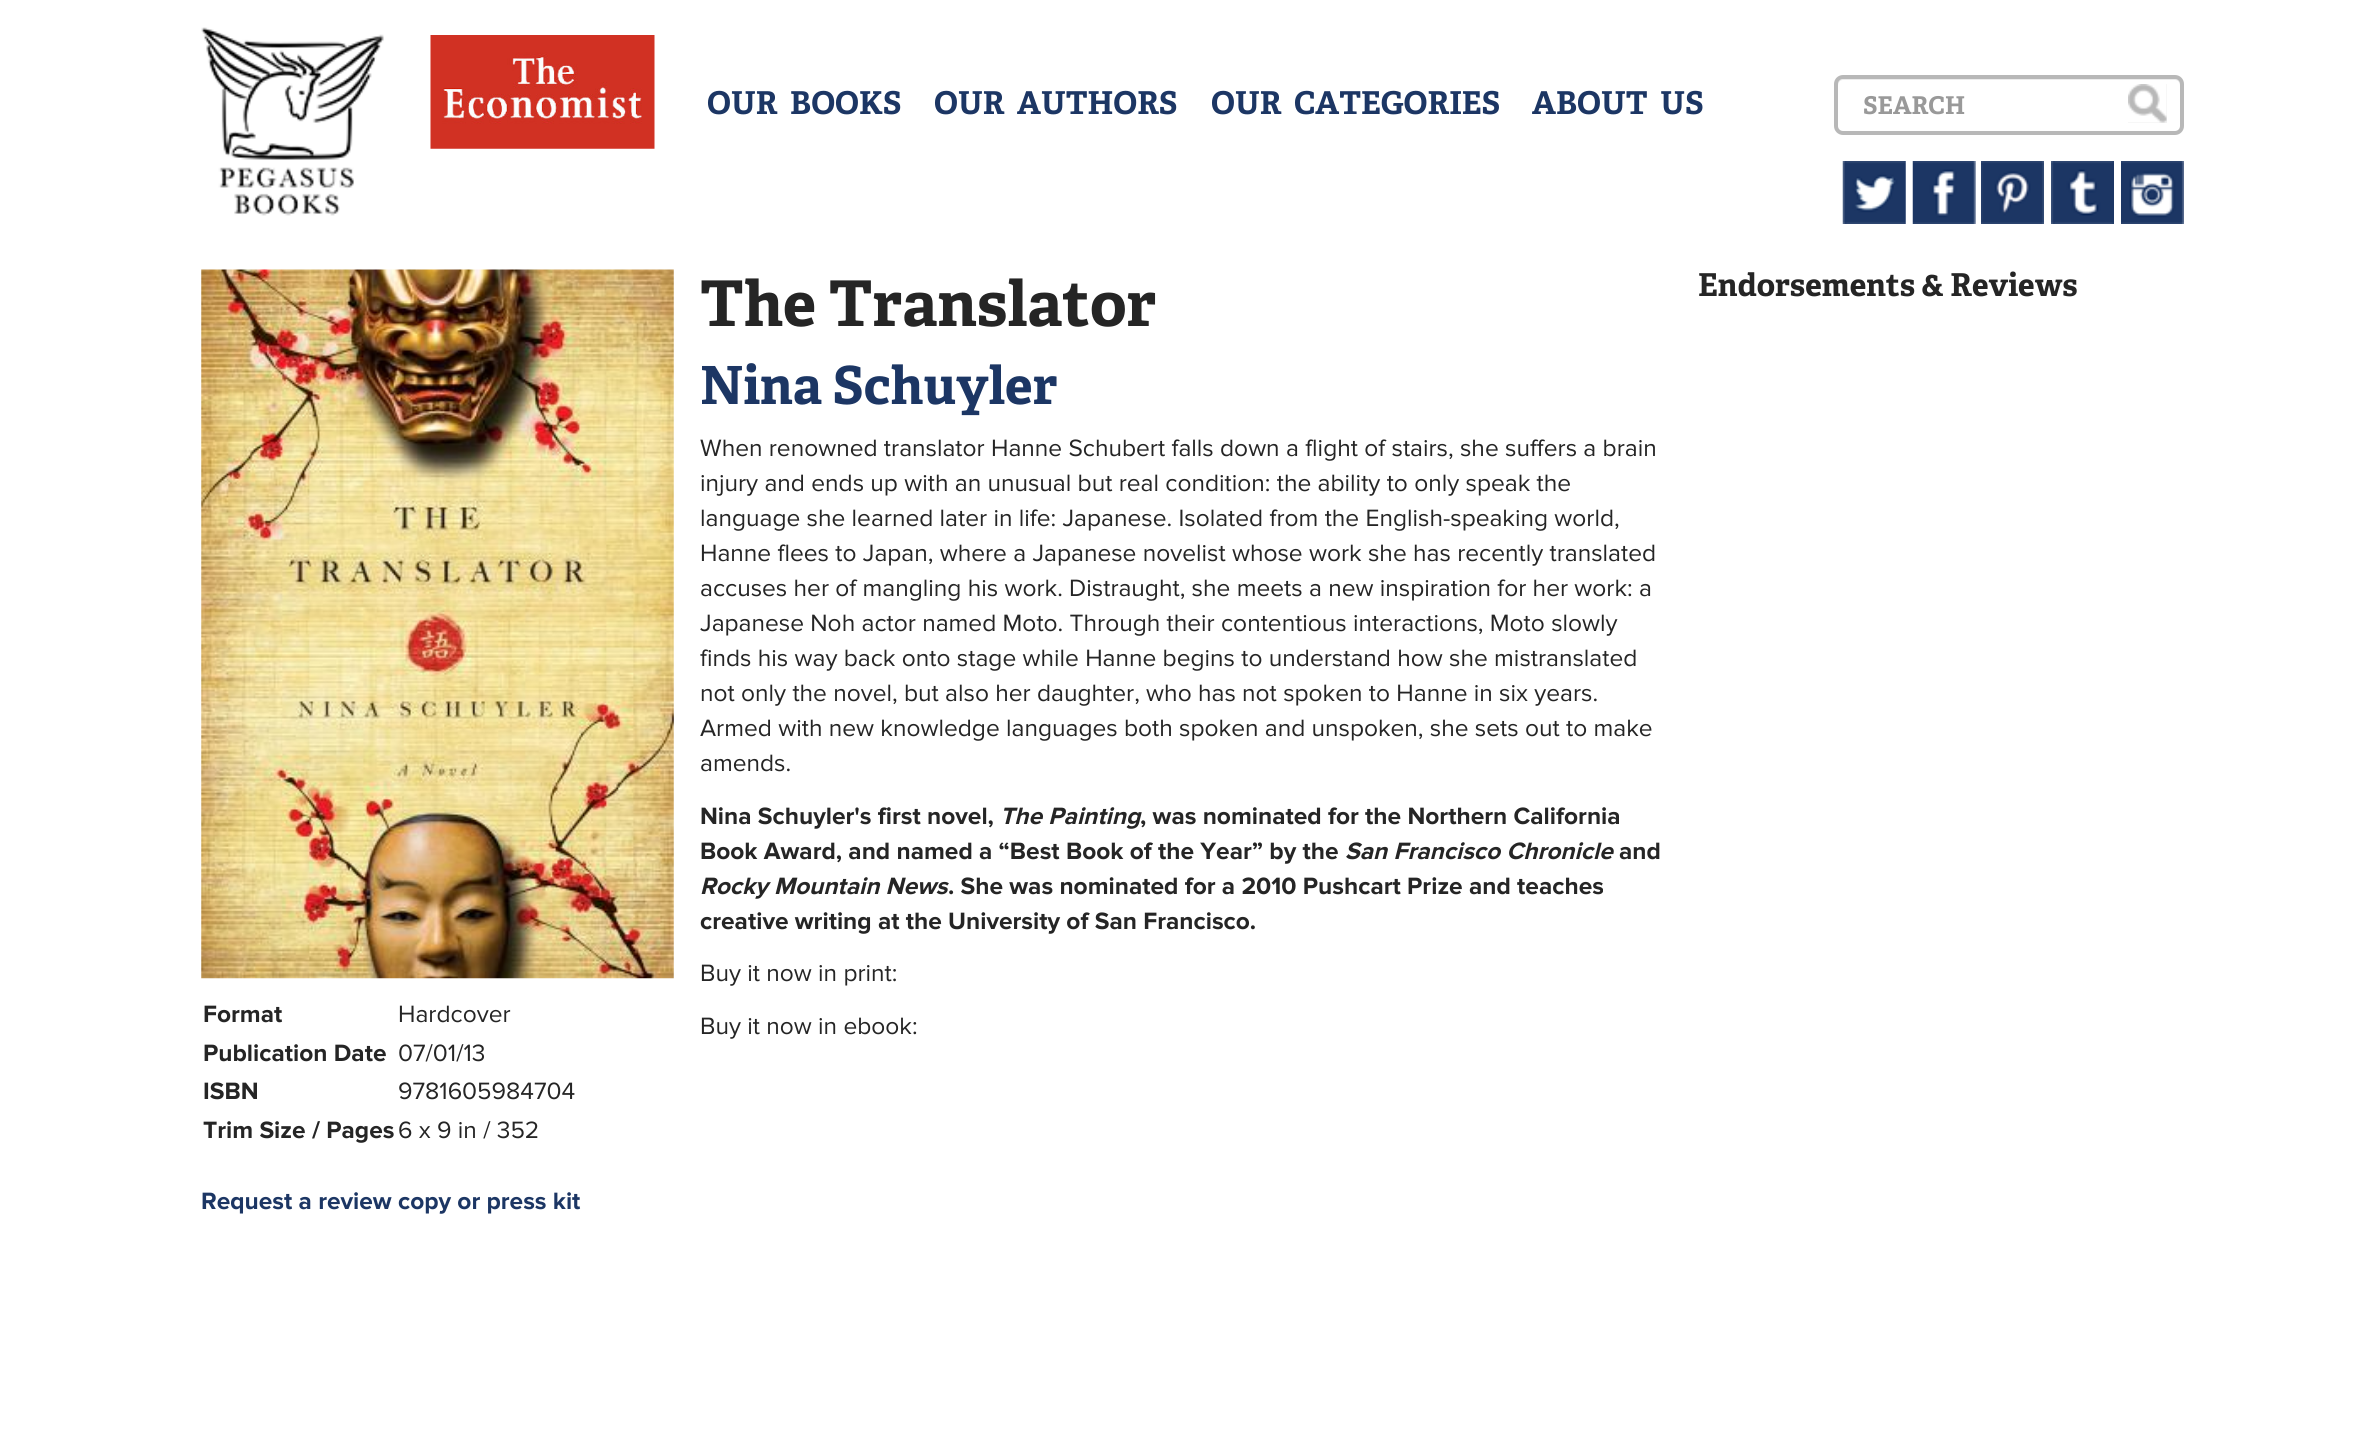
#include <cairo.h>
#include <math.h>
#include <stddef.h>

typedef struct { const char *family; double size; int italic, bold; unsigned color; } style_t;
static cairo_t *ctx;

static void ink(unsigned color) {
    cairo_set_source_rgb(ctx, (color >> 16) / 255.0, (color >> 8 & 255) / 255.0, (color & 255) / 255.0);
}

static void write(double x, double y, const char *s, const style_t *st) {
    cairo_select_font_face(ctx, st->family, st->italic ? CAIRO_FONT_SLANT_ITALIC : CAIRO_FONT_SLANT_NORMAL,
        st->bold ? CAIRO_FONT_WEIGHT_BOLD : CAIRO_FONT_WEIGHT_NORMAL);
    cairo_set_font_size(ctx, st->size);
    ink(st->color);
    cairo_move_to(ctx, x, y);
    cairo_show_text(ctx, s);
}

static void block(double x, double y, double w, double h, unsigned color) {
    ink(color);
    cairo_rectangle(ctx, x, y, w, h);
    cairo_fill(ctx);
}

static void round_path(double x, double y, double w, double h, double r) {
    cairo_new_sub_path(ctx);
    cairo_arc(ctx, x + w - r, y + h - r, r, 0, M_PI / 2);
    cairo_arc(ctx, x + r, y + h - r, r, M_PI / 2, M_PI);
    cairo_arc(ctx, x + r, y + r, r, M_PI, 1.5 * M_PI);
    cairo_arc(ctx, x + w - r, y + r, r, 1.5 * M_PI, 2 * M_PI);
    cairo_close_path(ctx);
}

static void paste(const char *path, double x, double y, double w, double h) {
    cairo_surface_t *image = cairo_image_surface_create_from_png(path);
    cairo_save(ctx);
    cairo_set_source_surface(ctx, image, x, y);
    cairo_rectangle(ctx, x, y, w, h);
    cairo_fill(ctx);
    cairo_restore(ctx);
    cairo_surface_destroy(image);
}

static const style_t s1 = {"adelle", 31.5, 0, 1, 0x1c3664};
static const style_t s2 = {"adelle", 24.5, 0, 1, 0x999999};
static const style_t s3 = {"adelle", 63, 0, 1, 0x252525};
static const style_t s4 = {"adelle", 52.5, 0, 1, 0x1c3664};
static const style_t s5 = {"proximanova", 24.5, 0, 0, 0x252525};
static const style_t s6 = {"proximanova", 24.5, 0, 1, 0x252525};
static const style_t s7 = {"proximanova", 24.5, 1, 1, 0x252525};
static const style_t s8 = {"adelle", 31.5, 0, 1, 0x252525};
static const style_t s9 = {"proximanova", 24.5, 0, 1, 0x1c3664};

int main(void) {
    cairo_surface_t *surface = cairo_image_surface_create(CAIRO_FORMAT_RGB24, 2370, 1452);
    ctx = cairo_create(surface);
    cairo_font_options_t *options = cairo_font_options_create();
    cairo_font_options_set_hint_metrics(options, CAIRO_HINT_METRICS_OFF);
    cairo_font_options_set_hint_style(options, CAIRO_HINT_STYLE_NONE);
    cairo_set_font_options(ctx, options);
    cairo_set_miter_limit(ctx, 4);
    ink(0xffffff);
    cairo_paint(ctx);
    paste("pic1.png", 201, 27, 183, 189);
    paste("pic2.png", 430, 35, 225, 114);
    write(707, 114, "OUR  BOOKS", &s1);
    write(934, 114, "OUR  AUTHORS", &s1);
    write(1211, 114, "OUR  CATEGORIES", &s1);
    write(1532, 114, "ABOUT  US", &s1);
    ink(0xececec);
    cairo_new_path(ctx);
    cairo_move_to(ctx, 1843, 80);
    cairo_line_to(ctx, 2175, 80);
    cairo_curve_to(ctx, 2178, 80, 2180, 83, 2180, 86);
    cairo_line_to(ctx, 2180, 129);
    cairo_curve_to(ctx, 2181, 128, 2181, 127, 2181, 126);
    cairo_line_to(ctx, 2181, 84);
    cairo_curve_to(ctx, 2181, 81, 2179, 79, 2176, 79);
    cairo_line_to(ctx, 1843, 79);
    cairo_curve_to(ctx, 1840, 79, 1838, 81, 1838, 84);
    cairo_line_to(ctx, 1838, 86);
    cairo_curve_to(ctx, 1838, 83, 1840, 80, 1843, 80);
    cairo_close_path(ctx);
    cairo_fill(ctx);
    round_path(1836, 77, 346, 56, 7);
    ink(0xb8b8b8);
    cairo_set_line_width(ctx, 4);
    cairo_stroke(ctx);
    write(1863, 114, "SEARCH", &s2);
    block(2128, 84, 39, 39, 0xefefef);
    paste("pic3.png", 2128, 84, 39, 39);
    paste("pic4.png", 1842, 161, 64, 63);
    paste("pic5.png", 1912, 161, 64, 63);
    paste("pic6.png", 1981, 161, 63, 63);
    paste("pic7.png", 2051, 161, 63, 63);
    paste("pic8.png", 2121, 161, 63, 63);
    write(700, 326, "The Translator", &s3);
    write(700, 404, "Nina Schuyler", &s4);
    write(700, 456, "When renowned translator Hanne Schubert falls down a flight of stairs, she suffers a brain", &s5);
    write(700, 491, "injury and ends up with an unusual but real condition: the ability to only speak the", &s5);
    write(700, 526, "language she learned later in life: Japanese. Isolated from the English-speaking world,", &s5);
    write(700, 561, "Hanne flees to Japan, where a Japanese novelist whose work she has recently translated", &s5);
    write(700, 596, "accuses her of mangling his work. Distraught, she meets a new inspiration for her work: a", &s5);
    write(700, 631, "Japanese Noh actor named Moto. Through their contentious interactions, Moto slowly", &s5);
    write(700, 666, "finds his way back onto stage while Hanne begins to understand how she mistranslated", &s5);
    write(700, 701, "not only the novel, but also her daughter, who has not spoken to Hanne in six years.", &s5);
    write(700, 736, "Armed with new knowledge languages both spoken and unspoken, she sets out to make", &s5);
    write(700, 771, "amends.", &s5);
    write(700, 824, "Nina Schuyler's first novel,", &s6);
    write(1000, 824, "The Painting", &s7);
    write(1140, 824, ", was nominated for the Northern California", &s6);
    write(700, 859, "Book Award, and named a “Best Book of the Year” by the", &s6);
    write(1345, 859, "San Francisco Chronicle", &s7);
    write(1619, 859, "and", &s6);
    write(700, 894, "Rocky Mountain News", &s7);
    write(948, 894, ". She was nominated for a 2010 Pushcart Prize and teaches", &s6);
    write(700, 929, "creative writing at the University of San Francisco.", &s6);
    write(700, 981, "Buy it now in print:", &s5);
    write(700, 1034, "Buy it now in ebook:", &s5);
    write(1698, 296, "Endorsements & Reviews", &s8);
    paste("pic9.png", 201, 269, 473, 710);
    write(203, 1022, "Format", &s6);
    write(398, 1022, "Hardcover", &s5);
    write(203, 1061, "Publication Date", &s6);
    write(398, 1061, "07/01/13", &s5);
    write(203, 1099, "ISBN", &s6);
    write(398, 1099, "9781605984704", &s5);
    write(203, 1138, "Trim Size / Pages", &s6);
    write(398, 1138, "6 x 9 in / 352", &s5);
    write(201, 1209, "Request a review copy or press kit", &s9);
    cairo_surface_write_to_png(surface, "screenshot.png");
    cairo_font_options_destroy(options);
    cairo_destroy(ctx);
    cairo_surface_destroy(surface);
    return 0;
}
